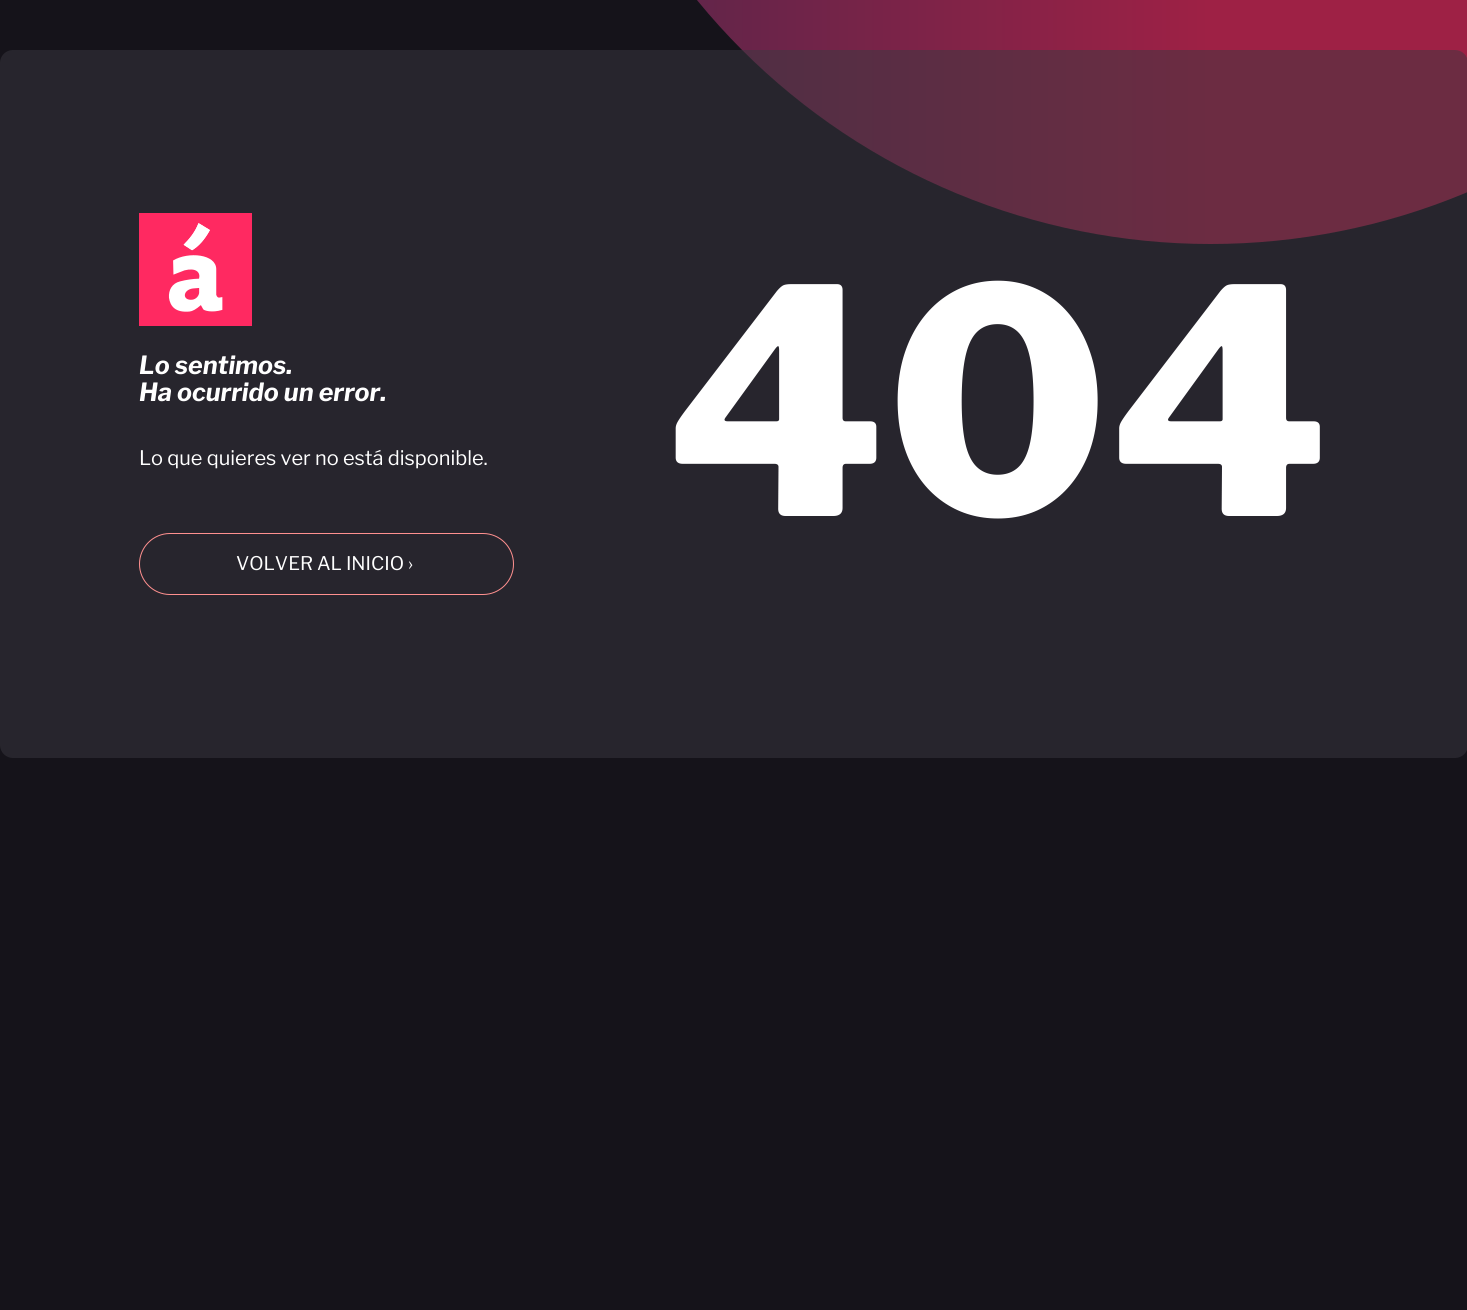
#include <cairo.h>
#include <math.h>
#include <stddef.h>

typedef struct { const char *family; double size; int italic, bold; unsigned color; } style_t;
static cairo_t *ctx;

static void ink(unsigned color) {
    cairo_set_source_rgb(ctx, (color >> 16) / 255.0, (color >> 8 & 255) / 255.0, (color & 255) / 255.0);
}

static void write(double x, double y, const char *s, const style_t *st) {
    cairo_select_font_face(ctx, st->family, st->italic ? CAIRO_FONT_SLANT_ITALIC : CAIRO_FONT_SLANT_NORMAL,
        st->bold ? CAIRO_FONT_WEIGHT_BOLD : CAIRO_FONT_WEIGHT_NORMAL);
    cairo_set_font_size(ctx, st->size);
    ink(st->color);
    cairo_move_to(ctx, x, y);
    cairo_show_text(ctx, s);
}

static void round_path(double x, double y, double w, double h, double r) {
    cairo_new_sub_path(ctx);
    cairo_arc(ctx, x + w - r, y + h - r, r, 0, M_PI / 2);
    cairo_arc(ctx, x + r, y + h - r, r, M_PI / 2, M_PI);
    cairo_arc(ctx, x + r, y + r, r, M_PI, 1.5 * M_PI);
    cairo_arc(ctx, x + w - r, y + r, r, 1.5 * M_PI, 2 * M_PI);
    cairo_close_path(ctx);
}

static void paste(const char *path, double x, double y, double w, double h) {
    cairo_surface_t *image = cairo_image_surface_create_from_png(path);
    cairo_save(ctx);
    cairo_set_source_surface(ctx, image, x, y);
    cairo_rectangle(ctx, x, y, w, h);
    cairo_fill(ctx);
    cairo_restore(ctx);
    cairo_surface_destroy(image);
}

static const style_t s1 = {"Libre Franklin", 25, 1, 1, 0xffffff};
static const style_t s2 = {"Libre Franklin", 20, 0, 0, 0xffffff};
static const style_t s3 = {"Libre Franklin", 18.75, 0, 0, 0xffffff};
static const style_t s4 = {"Libre Franklin ExtraBold", 312.5, 0, 0, 0xffffff};

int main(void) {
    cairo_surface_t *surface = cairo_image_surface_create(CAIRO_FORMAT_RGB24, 1467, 1310);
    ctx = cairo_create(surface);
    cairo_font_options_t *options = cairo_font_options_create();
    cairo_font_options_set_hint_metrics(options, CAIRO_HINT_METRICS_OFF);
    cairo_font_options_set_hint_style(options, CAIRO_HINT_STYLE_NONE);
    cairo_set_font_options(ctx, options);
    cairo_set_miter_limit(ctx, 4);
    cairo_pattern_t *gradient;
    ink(0x15131a);
    cairo_paint(ctx);
    gradient = cairo_pattern_create_linear(548, -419, 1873, -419);
    cairo_pattern_add_color_stop_rgba(gradient, 0, 0.322, 0.149, 0.294, 1);
    cairo_pattern_add_color_stop_rgba(gradient, 0.5, 0.62, 0.129, 0.271, 1);
    cairo_set_source(ctx, gradient);
    cairo_pattern_destroy(gradient);
    round_path(548, -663, 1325, 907, 662.5);
    cairo_fill(ctx);
    cairo_set_source_rgba(ctx, 0.231, 0.224, 0.251, 0.5);
    round_path(0, 50, 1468, 708, 13);
    cairo_fill(ctx);
    paste("pic1.png", 139, 213, 113, 113);
    write(139, 374, "Lo sentimos.", &s1);
    write(139, 401, "Ha ocurrido un error.", &s1);
    write(139, 465, "Lo que quieres ver no está disponible.", &s2);
    round_path(139.5, 533.5, 374, 61, 30.5);
    ink(0xff908f);
    cairo_set_line_width(ctx, 1);
    cairo_stroke(ctx);
    write(236, 570, "VOLVER AL INICIO ›", &s3);
    write(666, 516, "404", &s4);
    cairo_surface_write_to_png(surface, "screenshot.png");
    cairo_font_options_destroy(options);
    cairo_destroy(ctx);
    cairo_surface_destroy(surface);
    return 0;
}
